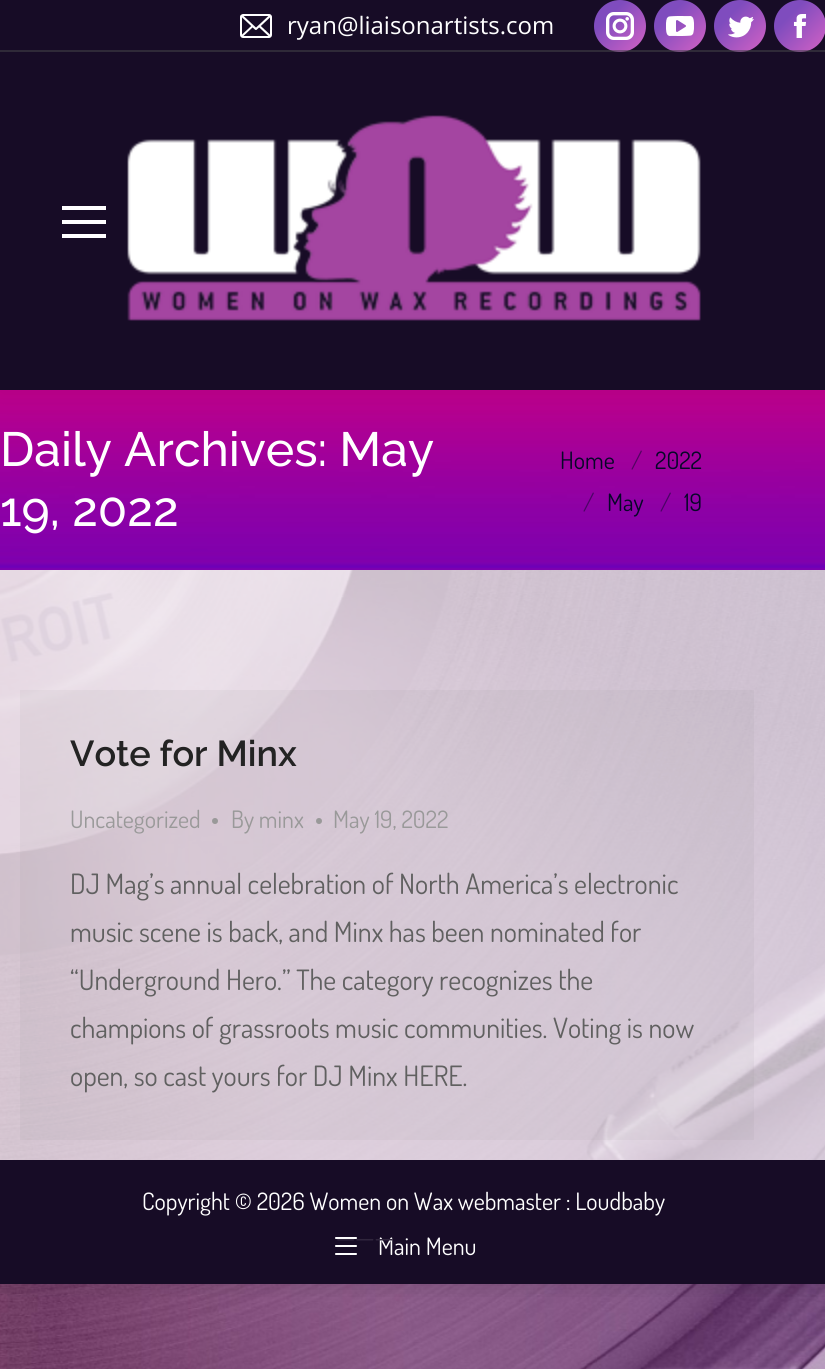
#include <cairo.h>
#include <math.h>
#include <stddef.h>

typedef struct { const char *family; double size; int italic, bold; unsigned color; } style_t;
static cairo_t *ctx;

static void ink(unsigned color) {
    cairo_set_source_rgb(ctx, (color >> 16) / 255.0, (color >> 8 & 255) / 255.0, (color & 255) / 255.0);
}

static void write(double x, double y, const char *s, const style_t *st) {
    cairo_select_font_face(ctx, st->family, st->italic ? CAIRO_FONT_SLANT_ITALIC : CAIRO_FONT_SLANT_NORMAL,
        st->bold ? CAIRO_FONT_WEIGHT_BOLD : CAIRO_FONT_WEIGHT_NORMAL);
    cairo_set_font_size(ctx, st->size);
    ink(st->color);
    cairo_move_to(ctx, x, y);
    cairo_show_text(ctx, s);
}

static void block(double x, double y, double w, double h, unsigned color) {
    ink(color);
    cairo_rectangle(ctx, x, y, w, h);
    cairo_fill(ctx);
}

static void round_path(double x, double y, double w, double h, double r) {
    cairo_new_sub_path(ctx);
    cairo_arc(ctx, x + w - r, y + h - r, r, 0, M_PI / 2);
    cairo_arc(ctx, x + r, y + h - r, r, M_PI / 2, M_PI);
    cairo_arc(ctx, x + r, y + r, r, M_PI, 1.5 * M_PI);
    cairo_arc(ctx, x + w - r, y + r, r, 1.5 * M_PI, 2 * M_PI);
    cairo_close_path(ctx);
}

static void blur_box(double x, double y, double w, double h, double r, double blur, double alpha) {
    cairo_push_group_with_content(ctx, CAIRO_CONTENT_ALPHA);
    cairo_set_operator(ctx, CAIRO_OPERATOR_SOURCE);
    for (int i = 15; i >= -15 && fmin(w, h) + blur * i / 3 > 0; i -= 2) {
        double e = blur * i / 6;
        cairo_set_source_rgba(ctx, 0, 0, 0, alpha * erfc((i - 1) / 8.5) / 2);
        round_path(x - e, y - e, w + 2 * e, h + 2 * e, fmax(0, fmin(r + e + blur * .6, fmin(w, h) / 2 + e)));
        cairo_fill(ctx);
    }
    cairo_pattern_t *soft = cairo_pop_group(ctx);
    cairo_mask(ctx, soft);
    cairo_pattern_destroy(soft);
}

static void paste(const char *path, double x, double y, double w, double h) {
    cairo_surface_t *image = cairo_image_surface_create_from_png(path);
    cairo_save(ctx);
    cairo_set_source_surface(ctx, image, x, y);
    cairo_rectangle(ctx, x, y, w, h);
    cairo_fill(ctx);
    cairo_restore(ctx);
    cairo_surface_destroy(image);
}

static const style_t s1 = {"Open Sans", 24, 0, 0, 0xffffff};
static const style_t s2 = {"Raleway Medium", 48, 0, 0, 0xffffff};
static const style_t s3 = {"Dosis", 24, 0, 0, 0x060728};
static const style_t s4 = {"Dosis", 24, 0, 0, 0x530462};
static const style_t s5 = {"Dosis", 24, 0, 0, 0x4b0466};
static const style_t s6 = {"Raleway SemiBold", 36, 0, 0, 0x232323};
static const style_t s7 = {"Dosis", 24, 0, 0, 0x999999};
static const style_t s8 = {"Dosis", 28, 0, 0, 0x606060};
static const style_t s9 = {"Dosis", 24, 0, 0, 0xffffff};
static const style_t s10 = {"Dosis", 26, 0, 0, 0x30263d};

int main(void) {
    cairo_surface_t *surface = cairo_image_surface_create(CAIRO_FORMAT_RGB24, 825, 1369);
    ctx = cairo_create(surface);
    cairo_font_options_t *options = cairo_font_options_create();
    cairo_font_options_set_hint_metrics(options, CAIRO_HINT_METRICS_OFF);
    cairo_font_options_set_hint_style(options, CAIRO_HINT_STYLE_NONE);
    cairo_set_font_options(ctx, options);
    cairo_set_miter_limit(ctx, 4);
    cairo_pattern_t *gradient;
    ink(0xffffff);
    cairo_paint(ctx);
    paste("pic1.png", 0, 570, 825, 799);
    cairo_save(ctx);
    cairo_rectangle(ctx, 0, 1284, 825, 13);
    cairo_clip(ctx);
    ink(0x000000);
    blur_box(0, 0, 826, 1284, 0, 12, 0.15);
    cairo_restore(ctx);
    paste("pic8.png", 0, 390, 825, 180);
    ink(0x000000);
    blur_box(-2, -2, 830, 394, 0, 15, 0.07);
    block(0, 0, 825, 390, 0x170c26);
    paste("pic2.png", 240, 14, 32, 24);
    write(287, 34, "ryan@liaisonartists.com", &s1);
    gradient = cairo_pattern_create_linear(594, 0, 646, 52);
    cairo_pattern_add_color_stop_rgba(gradient, 0.3, 0.498, 0.298, 0.745, 1);
    cairo_pattern_add_color_stop_rgba(gradient, 1, 0.831, 0.384, 0.773, 1);
    cairo_set_source(ctx, gradient);
    cairo_pattern_destroy(gradient);
    cairo_new_path(ctx);
    cairo_arc(ctx, 620, 26, 26, 0, 2 * M_PI);
    cairo_fill(ctx);
    paste("pic3.png", 606, 12, 28, 28);
    gradient = cairo_pattern_create_linear(654, 0, 706, 52);
    cairo_pattern_add_color_stop_rgba(gradient, 0.3, 0.498, 0.298, 0.745, 1);
    cairo_pattern_add_color_stop_rgba(gradient, 1, 0.831, 0.384, 0.773, 1);
    cairo_set_source(ctx, gradient);
    cairo_pattern_destroy(gradient);
    cairo_arc(ctx, 680, 26, 26, 0, 2 * M_PI);
    cairo_fill(ctx);
    paste("pic4.png", 666, 16, 28, 20);
    gradient = cairo_pattern_create_linear(714, 0, 766, 52);
    cairo_pattern_add_color_stop_rgba(gradient, 0.3, 0.498, 0.298, 0.745, 1);
    cairo_pattern_add_color_stop_rgba(gradient, 1, 0.831, 0.384, 0.773, 1);
    cairo_set_source(ctx, gradient);
    cairo_pattern_destroy(gradient);
    cairo_arc(ctx, 740, 26, 26, 0, 2 * M_PI);
    cairo_fill(ctx);
    paste("pic5.png", 728, 16, 26, 22);
    gradient = cairo_pattern_create_linear(774, 0, 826, 52);
    cairo_pattern_add_color_stop_rgba(gradient, 0.3, 0.498, 0.298, 0.745, 1);
    cairo_pattern_add_color_stop_rgba(gradient, 1, 0.831, 0.384, 0.773, 1);
    cairo_set_source(ctx, gradient);
    cairo_pattern_destroy(gradient);
    cairo_arc(ctx, 800, 26, 26, 0, 2 * M_PI);
    cairo_fill(ctx);
    paste("pic6.png", 793, 14, 14, 24);
    cairo_set_source_rgba(ctx, 0.267, 0.263, 0.278, 0.55);
    cairo_rectangle(ctx, 0, 50, 825, 2);
    cairo_fill(ctx);
    block(62, 206, 44, 4, 0xffffff);
    block(62, 220, 44, 4, 0xffffff);
    block(62, 234, 44, 4, 0xffffff);
    paste("pic7.png", 127, 115, 574, 206);
    write(0, 466, "Daily Archives: May", &s2);
    write(0, 526, "19, 2022", &s2);
    write(560, 469, "Home", &s3);
    write(631, 469, "/", &s4);
    write(655, 469, "2022", &s3);
    write(583, 511, "/", &s5);
    write(607, 511, "May", &s3);
    write(660, 511, "/", &s5);
    write(684, 511, "19", &s3);
    cairo_set_source_rgba(ctx, 0.533, 0.533, 0.533, 0.08);
    cairo_rectangle(ctx, 20, 690, 734, 450);
    cairo_fill(ctx);
    write(70, 766, "Vote for Minx", &s6);
    write(70, 828, "Uncategorized", &s7);
    cairo_new_path(ctx);
    cairo_arc(ctx, 215, 821, 3, 0, 2 * M_PI);
    cairo_fill(ctx);
    write(231, 828, "By minx", &s7);
    cairo_new_path(ctx);
    cairo_arc(ctx, 319, 821, 3, 0, 2 * M_PI);
    cairo_fill(ctx);
    write(333, 828, "May 19, 2022", &s7);
    write(70, 894, "DJ Mag’s annual celebration of North America’s electronic", &s8);
    write(70, 942, "music scene is back, and Minx has been nominated for", &s8);
    write(70, 990, "“Underground Hero.” The category recognizes the", &s8);
    write(70, 1038, "champions of grassroots music communities. Voting is now", &s8);
    write(70, 1086, "open, so cast yours for DJ Minx HERE.", &s8);
    block(0, 1160, 825, 124, 0x170c26);
    write(142, 1210, "Copyright © 2026 Women on Wax webmaster : Loudbaby", &s9);
    paste("pic9.png", 335, 1237, 22, 18);
    write(378, 1255, "Main Menu", &s9);
    write(336, 1246, "———", &s10);
    cairo_surface_write_to_png(surface, "screenshot.png");
    cairo_font_options_destroy(options);
    cairo_destroy(ctx);
    cairo_surface_destroy(surface);
    return 0;
}
